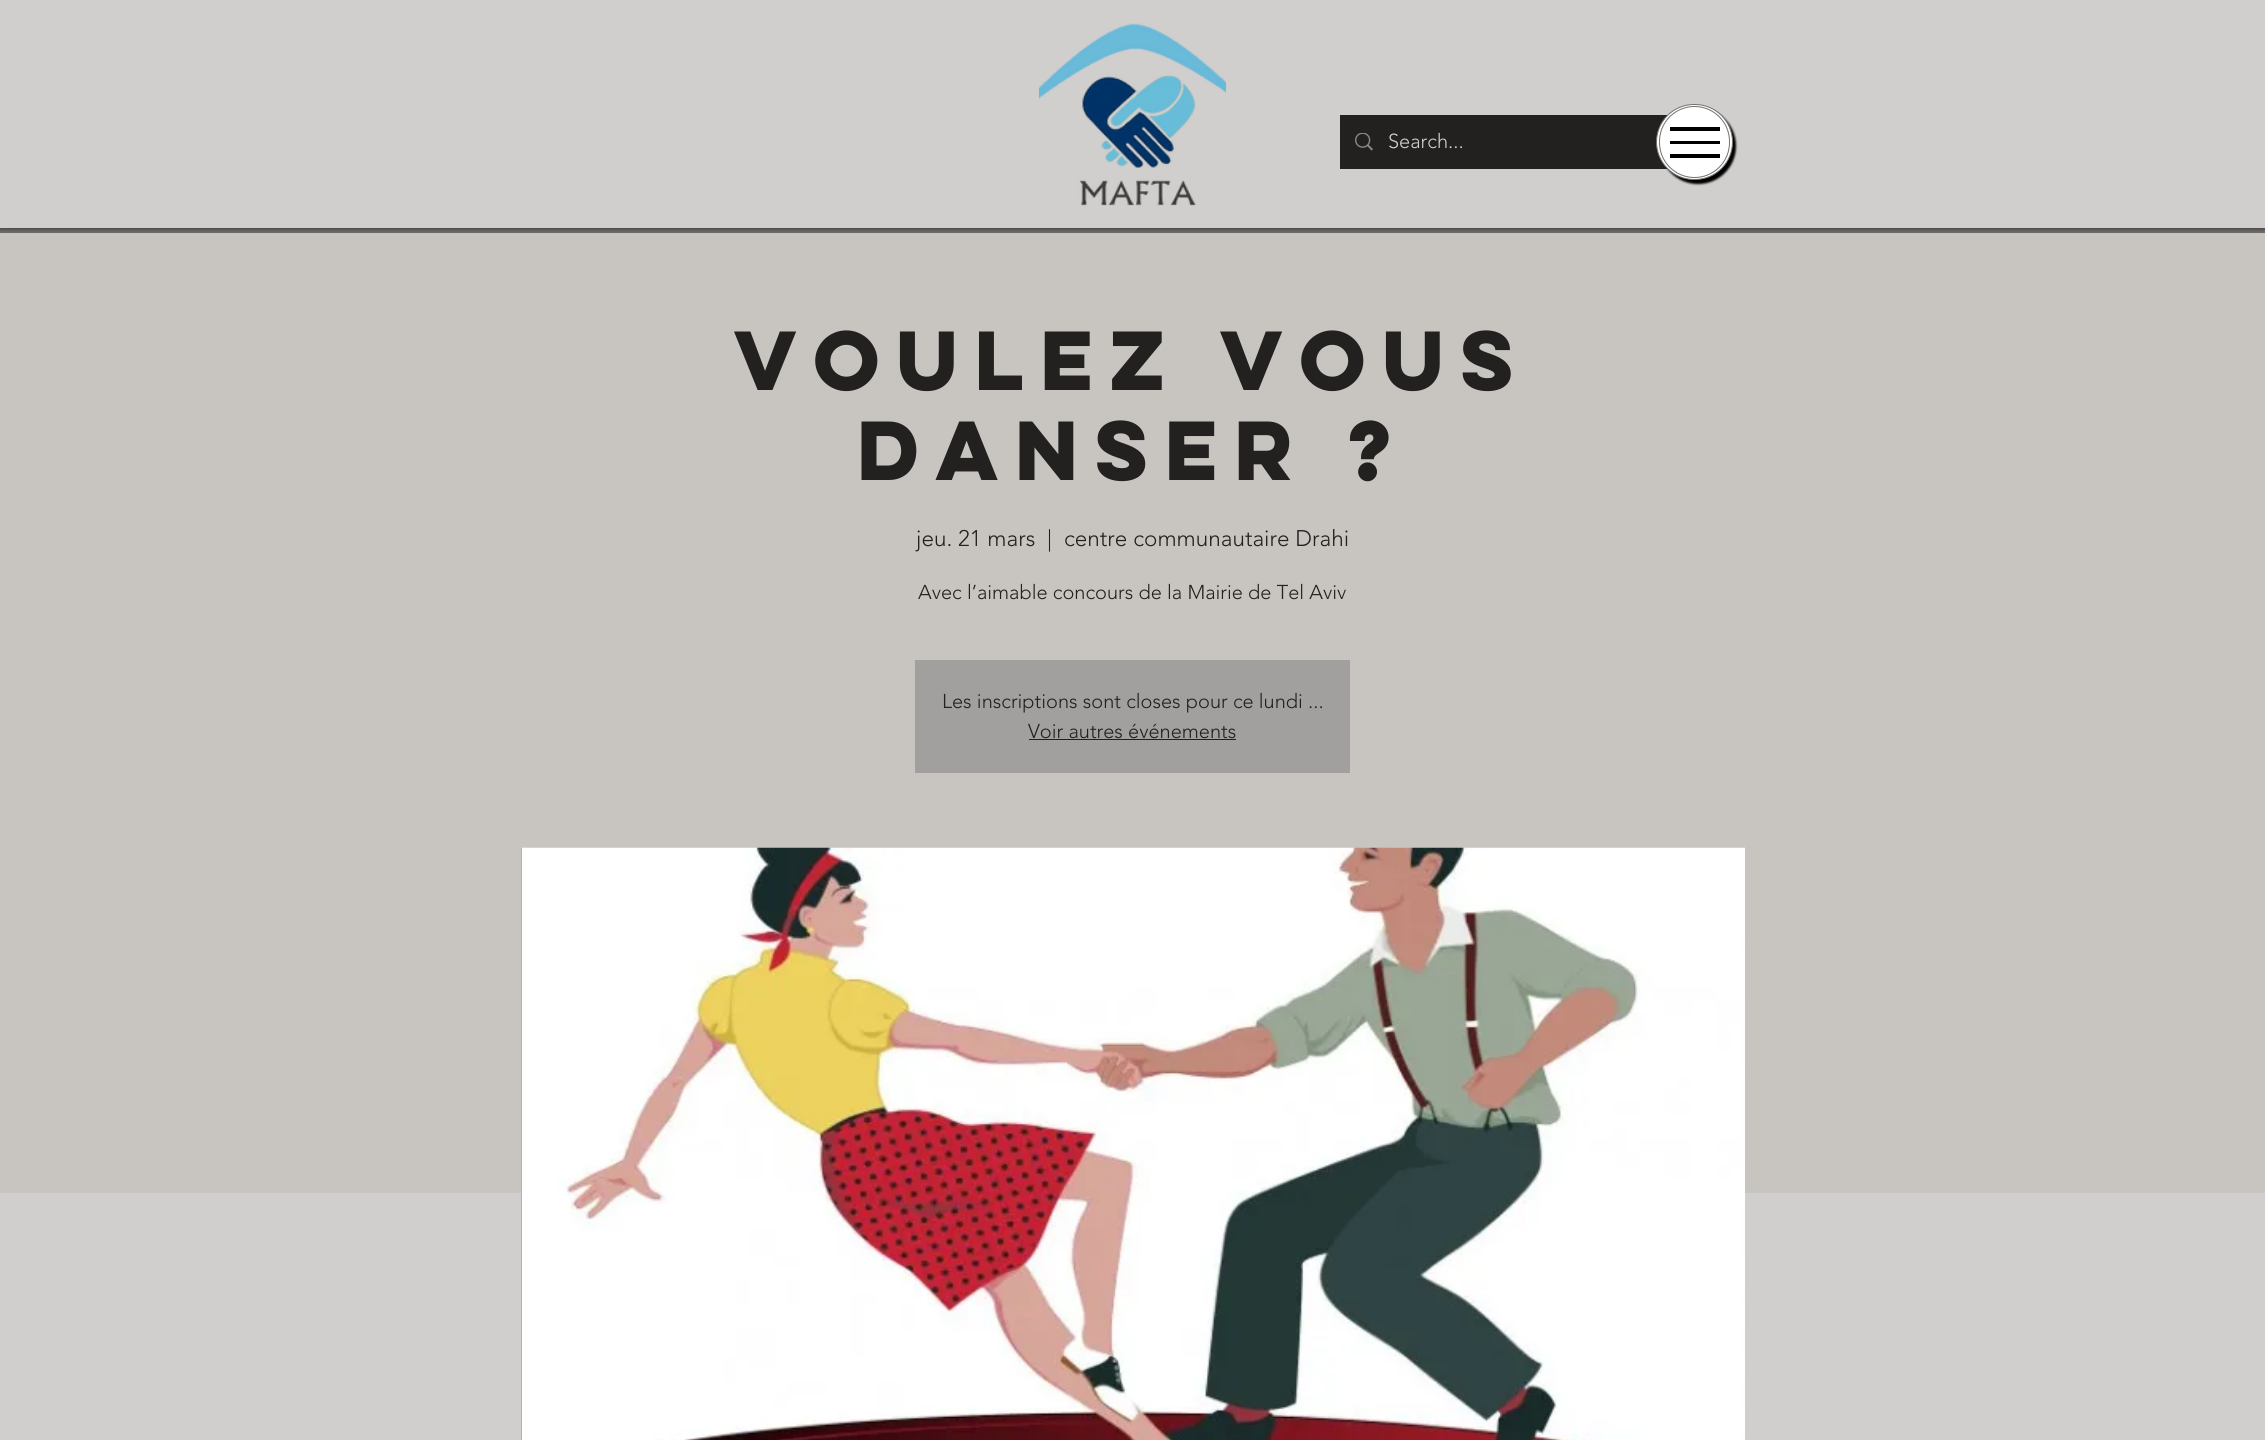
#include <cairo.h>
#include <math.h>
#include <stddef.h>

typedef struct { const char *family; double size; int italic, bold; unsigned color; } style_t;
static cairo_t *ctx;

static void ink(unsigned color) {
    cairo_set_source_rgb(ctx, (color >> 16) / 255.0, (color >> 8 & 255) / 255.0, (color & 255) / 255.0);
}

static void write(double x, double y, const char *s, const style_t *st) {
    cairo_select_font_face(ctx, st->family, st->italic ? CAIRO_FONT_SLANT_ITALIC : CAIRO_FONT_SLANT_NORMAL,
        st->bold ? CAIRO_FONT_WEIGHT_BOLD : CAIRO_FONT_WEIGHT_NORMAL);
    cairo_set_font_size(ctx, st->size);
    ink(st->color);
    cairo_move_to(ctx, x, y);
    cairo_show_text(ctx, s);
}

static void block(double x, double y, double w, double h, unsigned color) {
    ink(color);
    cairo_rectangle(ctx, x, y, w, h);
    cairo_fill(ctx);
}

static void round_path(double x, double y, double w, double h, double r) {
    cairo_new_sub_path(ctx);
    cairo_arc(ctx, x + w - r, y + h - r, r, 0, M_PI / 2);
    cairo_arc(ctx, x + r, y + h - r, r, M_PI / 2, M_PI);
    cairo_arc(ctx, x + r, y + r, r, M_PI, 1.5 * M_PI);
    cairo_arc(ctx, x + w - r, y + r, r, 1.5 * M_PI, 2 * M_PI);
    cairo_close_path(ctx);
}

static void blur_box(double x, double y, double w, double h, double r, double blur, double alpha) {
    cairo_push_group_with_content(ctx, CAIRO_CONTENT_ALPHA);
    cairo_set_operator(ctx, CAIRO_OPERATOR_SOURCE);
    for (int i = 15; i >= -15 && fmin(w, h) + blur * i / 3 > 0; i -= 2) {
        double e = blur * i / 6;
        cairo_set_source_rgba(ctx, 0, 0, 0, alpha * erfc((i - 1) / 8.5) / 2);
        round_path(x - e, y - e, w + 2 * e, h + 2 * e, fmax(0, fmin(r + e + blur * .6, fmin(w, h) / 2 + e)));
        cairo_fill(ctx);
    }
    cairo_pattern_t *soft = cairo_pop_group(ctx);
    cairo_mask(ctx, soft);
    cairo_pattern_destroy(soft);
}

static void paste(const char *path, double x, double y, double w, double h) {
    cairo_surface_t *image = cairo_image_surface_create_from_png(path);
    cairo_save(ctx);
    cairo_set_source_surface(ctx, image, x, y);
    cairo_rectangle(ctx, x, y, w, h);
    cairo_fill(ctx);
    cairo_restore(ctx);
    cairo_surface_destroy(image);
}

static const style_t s1 = {"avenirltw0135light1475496 Light", 20, 0, 0, 0xd0cfcd};
static const style_t s2 = {"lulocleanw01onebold", 75, 0, 1, 0x222120};
static const style_t s3 = {"avenirltw0135light1475496 Light", 22.5, 0, 0, 0x222120};
static const style_t s4 = {"avenirltw0135light1475496 Light", 20, 0, 0, 0x222120};

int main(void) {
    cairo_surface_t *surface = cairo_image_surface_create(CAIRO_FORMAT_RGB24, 2265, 1440);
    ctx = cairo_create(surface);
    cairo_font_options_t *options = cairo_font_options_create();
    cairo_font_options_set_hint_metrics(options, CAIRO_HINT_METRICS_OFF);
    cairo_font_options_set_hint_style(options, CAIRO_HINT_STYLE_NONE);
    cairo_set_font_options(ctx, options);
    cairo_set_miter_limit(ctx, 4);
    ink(0x72716f);
    cairo_paint(ctx);
    ink(0x000000);
    blur_box(0, 0, 2265, 228, 0, 3, 0.7);
    block(0, 0, 2265, 228, 0xd0cfcd);
    paste("pic1.png", 1038, 23, 189, 183);
    block(1340, 115, 328, 54, 0x222120);
    paste("pic2.png", 1355, 133, 18, 18);
    write(1388, 148, "Search...", &s1);
    ink(0x000000);
    blur_box(1660, 108, 76, 76, 38, 1, 1);
    ink(0xffffff);
    round_path(1656.5, 104.5, 76, 75, 37.5);
    cairo_fill_preserve(ctx);
    ink(0x72716f);
    cairo_set_line_width(ctx, 1);
    cairo_stroke(ctx);
    round_path(1659.5, 106.5, 70, 71, 35);
    cairo_stroke(ctx);
    block(1670, 154, 50, 4, 0x000000);
    block(1670, 127, 50, 4, 0x000000);
    block(1670, 141, 50, 3, 0x000000);
    block(0, 233, 2265, 960, 0xc8c5c1);
    write(734, 390, "Voulez vous", &s2);
    write(857, 480, "danser ?", &s2);
    write(916, 546, "jeu. 21 mars", &s3);
    write(1047, 546, "|", &s3);
    write(1064, 546, "centre communautaire Drahi", &s3);
    write(918, 599, "Avec l’aimable concours de la Mairie de Tel Aviv", &s4);
    block(915, 660, 435, 113, 0xa1a09e);
    write(942, 708, "Les inscriptions sont closes pour ce lundi ...", &s4);
    write(1028, 738, "Voir autres événements", &s4);
    block(1029, 739, 207, 1, 0x222120);
    block(0, 1193, 2265, 247, 0xd0cfcd);
    block(521, 848, 1, 592, 0x5e4d3d);
    paste("pic3.png", 521, 847, 1224, 593);
    cairo_surface_write_to_png(surface, "screenshot.png");
    cairo_font_options_destroy(options);
    cairo_destroy(ctx);
    cairo_surface_destroy(surface);
    return 0;
}
